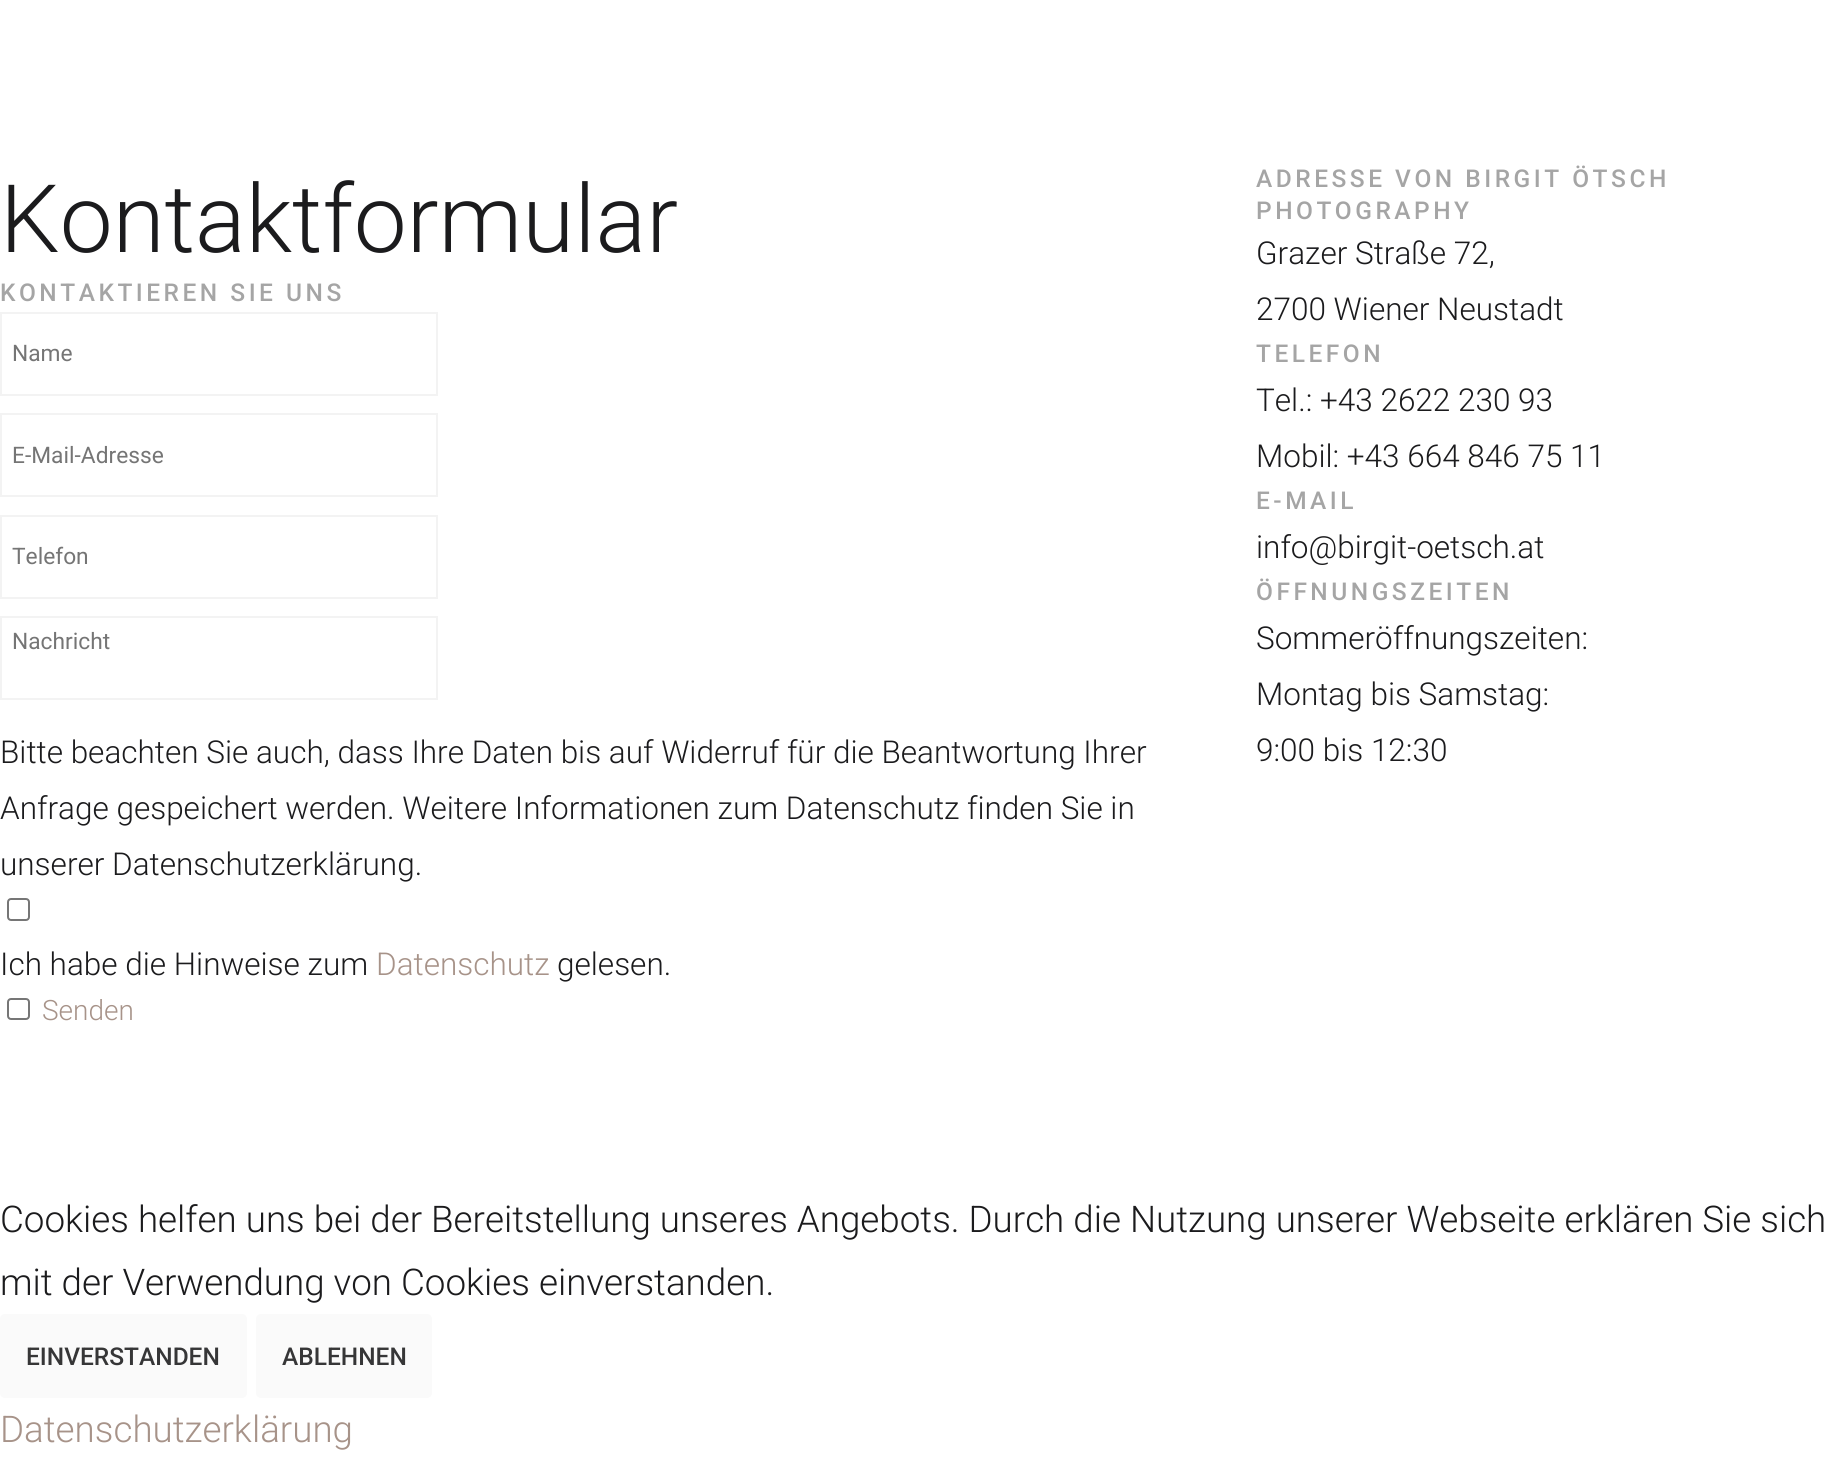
#include <cairo.h>
#include <math.h>
#include <stddef.h>

typedef struct { const char *family; double size; int italic, bold; unsigned color; } style_t;
static cairo_t *ctx;

static void ink(unsigned color) {
    cairo_set_source_rgb(ctx, (color >> 16) / 255.0, (color >> 8 & 255) / 255.0, (color & 255) / 255.0);
}

static void write(double x, double y, const char *s, const style_t *st) {
    cairo_select_font_face(ctx, st->family, st->italic ? CAIRO_FONT_SLANT_ITALIC : CAIRO_FONT_SLANT_NORMAL,
        st->bold ? CAIRO_FONT_WEIGHT_BOLD : CAIRO_FONT_WEIGHT_NORMAL);
    cairo_set_font_size(ctx, st->size);
    ink(st->color);
    cairo_move_to(ctx, x, y);
    cairo_show_text(ctx, s);
}

static void write_spaced(double x, double y, const char *s, double letter, double word) {
    cairo_move_to(ctx, x, y);
    while (*s) {
        char ch[5] = {0};
        int n = 0;
        do ch[n++] = *s++; while ((*s & 0xC0) == 0x80);
        cairo_show_text(ctx, ch);
        cairo_rel_move_to(ctx, letter + word * (*ch == ' '), 0);
    }
}

static void round_path(double x, double y, double w, double h, double r) {
    cairo_new_sub_path(ctx);
    cairo_arc(ctx, x + w - r, y + h - r, r, 0, M_PI / 2);
    cairo_arc(ctx, x + r, y + h - r, r, M_PI / 2, M_PI);
    cairo_arc(ctx, x + r, y + r, r, M_PI, 1.5 * M_PI);
    cairo_arc(ctx, x + w - r, y + r, r, 1.5 * M_PI, 2 * M_PI);
    cairo_close_path(ctx);
}

static const style_t s1 = {"Roboto Light", 94.5, 0, 0, 0x1b1b1d};
static const style_t s2 = {"Roboto", 22.75, 0, 0, 0x757575};
static const style_t s3 = {"Roboto Light", 31.5, 0, 0, 0x1b1b1d};
static const style_t s4 = {"Roboto Light", 31.5, 0, 0, 0xa79389};
static const style_t s5 = {"Roboto Light", 28, 0, 0, 0xa79389};
static const style_t s6 = {"Roboto Light", 36.75, 0, 0, 0x1b1b1d};
static const style_t s7 = {"Roboto Medium", 24.5, 0, 0, 0x363637};
static const style_t s8 = {"Roboto Light", 36.75, 0, 0, 0xa79389};

int main(void) {
    cairo_surface_t *surface = cairo_image_surface_create(CAIRO_FORMAT_RGB24, 1844, 1460);
    ctx = cairo_create(surface);
    cairo_font_options_t *options = cairo_font_options_create();
    cairo_font_options_set_hint_metrics(options, CAIRO_HINT_METRICS_OFF);
    cairo_font_options_set_hint_style(options, CAIRO_HINT_STYLE_NONE);
    cairo_set_font_options(ctx, options);
    cairo_set_miter_limit(ctx, 4);
    ink(0xffffff);
    cairo_paint(ctx);
    write(0, 252, "Kontaktformular", &s1);
    cairo_select_font_face(ctx, "Roboto Medium", CAIRO_FONT_SLANT_NORMAL, CAIRO_FONT_WEIGHT_NORMAL);
    cairo_set_font_size(ctx, 24.5);
    ink(0xa5a5a5);
    write_spaced(0, 301, "KONTAKTIEREN SIE UNS", 3.5, 0);
    cairo_rectangle(ctx, 1, 313, 436, 82);
    ink(0xf3f3f3);
    cairo_stroke(ctx);
    write(12, 361, "Name", &s2);
    cairo_rectangle(ctx, 1, 414, 436, 82);
    ink(0xf3f3f3);
    cairo_stroke(ctx);
    write(12, 463, "E-Mail-Adresse", &s2);
    cairo_rectangle(ctx, 1, 516, 436, 82);
    ink(0xf3f3f3);
    cairo_stroke(ctx);
    write(12, 564, "Telefon", &s2);
    cairo_rectangle(ctx, 1, 617, 436, 82);
    ink(0xf3f3f3);
    cairo_stroke(ctx);
    write(12, 649, "Nachricht", &s2);
    write(0, 763, "Bitte beachten Sie auch, dass Ihre Daten bis auf Widerruf für die Beantwortung Ihrer", &s3);
    write(0, 819, "Anfrage gespeichert werden. Weitere Informationen zum Datenschutz finden Sie in", &s3);
    write(0, 875, "unserer Datenschutzerklärung.", &s3);
    round_path(8, 899, 21, 21, 3);
    ink(0x767676);
    cairo_stroke(ctx);
    write(0, 975, "Ich habe die Hinweise zum", &s3);
    write(376, 975, "Datenschutz", &s4);
    write(557, 975, "gelesen.", &s3);
    round_path(8, 999, 21, 20, 3);
    ink(0x767676);
    cairo_stroke(ctx);
    write(42, 1020, "Senden", &s5);
    cairo_select_font_face(ctx, "Roboto Medium", CAIRO_FONT_SLANT_NORMAL, CAIRO_FONT_WEIGHT_NORMAL);
    cairo_set_font_size(ctx, 24.5);
    ink(0xa5a5a5);
    write_spaced(1256, 187, "ADRESSE VON BIRGIT ÖTSCH", 3.5, 0);
    write_spaced(1256, 219, "PHOTOGRAPHY", 3.5, 0);
    write(1256, 264, "Grazer Straße 72,", &s3);
    write(1256, 320, "2700 Wiener Neustadt", &s3);
    cairo_select_font_face(ctx, "Roboto Medium", CAIRO_FONT_SLANT_NORMAL, CAIRO_FONT_WEIGHT_NORMAL);
    cairo_set_font_size(ctx, 24.5);
    ink(0xa5a5a5);
    write_spaced(1256, 362, "TELEFON", 3.5, 0);
    write(1256, 411, "Tel.: +43 2622 230 93", &s3);
    write(1256, 467, "Mobil: +43 664 846 75 11", &s3);
    cairo_select_font_face(ctx, "Roboto Medium", CAIRO_FONT_SLANT_NORMAL, CAIRO_FONT_WEIGHT_NORMAL);
    cairo_set_font_size(ctx, 24.5);
    ink(0xa5a5a5);
    write_spaced(1256, 509, "E-MAIL", 3.5, 0);
    write(1256, 558, "info@birgit-oetsch.at", &s3);
    cairo_select_font_face(ctx, "Roboto Medium", CAIRO_FONT_SLANT_NORMAL, CAIRO_FONT_WEIGHT_NORMAL);
    cairo_set_font_size(ctx, 24.5);
    ink(0xa5a5a5);
    write_spaced(1256, 600, "ÖFFNUNGSZEITEN", 3.5, 0);
    write(1256, 649, "Sommeröffnungszeiten:", &s3);
    write(1256, 705, "Montag bis Samstag:", &s3);
    write(1256, 761, "9:00 bis 12:30", &s3);
    write(0, 1232, "Cookies helfen uns bei der Bereitstellung unseres Angebots. Durch die Nutzung unserer Webseite erklären Sie sich", &s6);
    write(0, 1295, "mit der Verwendung von Cookies einverstanden.", &s6);
    ink(0xfafafa);
    round_path(0, 1314, 247, 84, 5);
    cairo_fill(ctx);
    write(26, 1365, "EINVERSTANDEN", &s7);
    ink(0xfafafa);
    round_path(256, 1314, 176, 84, 5);
    cairo_fill(ctx);
    write(282, 1365, "ABLEHNEN", &s7);
    write(0, 1442, "Datenschutzerklärung", &s8);
    cairo_surface_write_to_png(surface, "screenshot.png");
    cairo_font_options_destroy(options);
    cairo_destroy(ctx);
    cairo_surface_destroy(surface);
    return 0;
}
